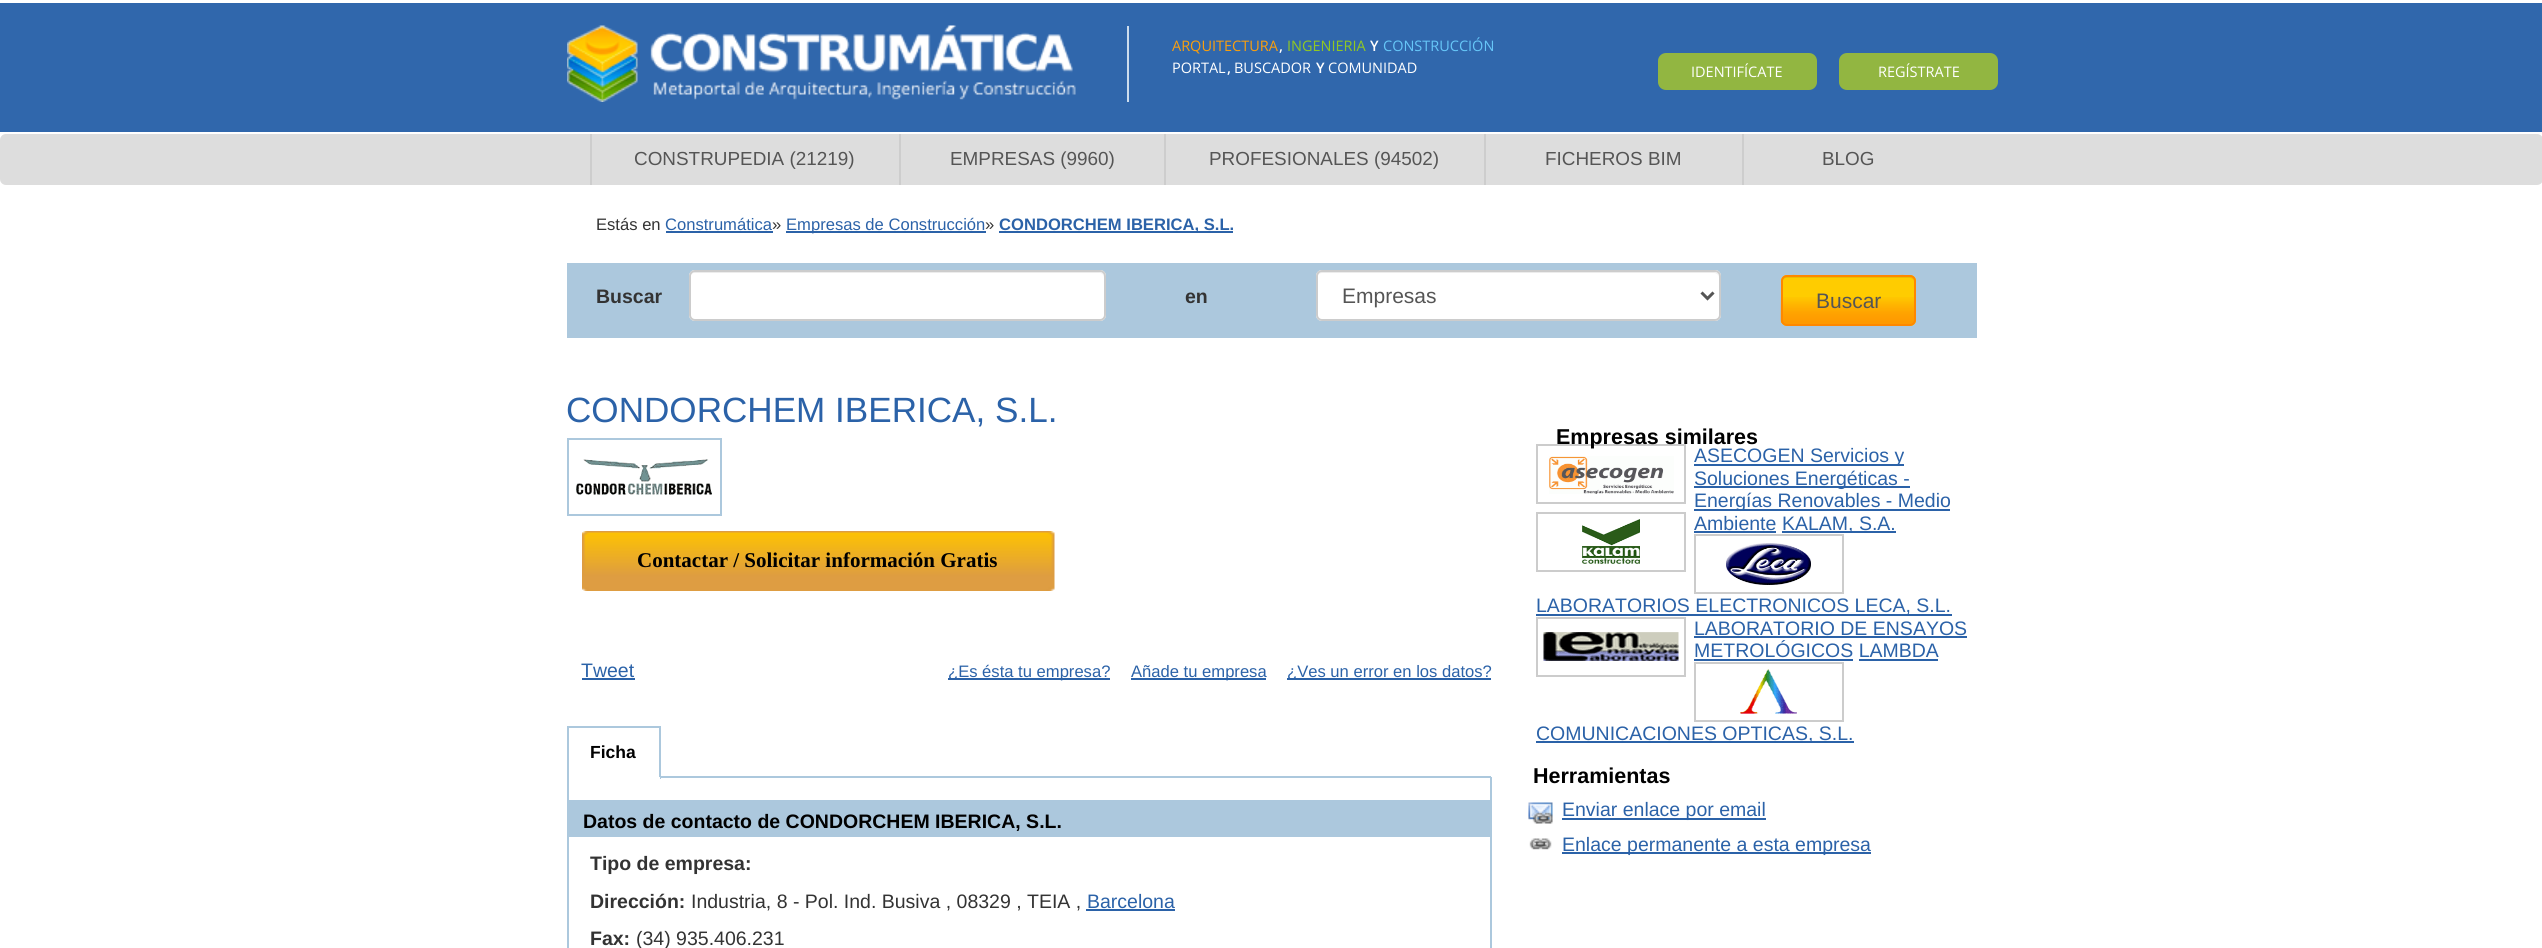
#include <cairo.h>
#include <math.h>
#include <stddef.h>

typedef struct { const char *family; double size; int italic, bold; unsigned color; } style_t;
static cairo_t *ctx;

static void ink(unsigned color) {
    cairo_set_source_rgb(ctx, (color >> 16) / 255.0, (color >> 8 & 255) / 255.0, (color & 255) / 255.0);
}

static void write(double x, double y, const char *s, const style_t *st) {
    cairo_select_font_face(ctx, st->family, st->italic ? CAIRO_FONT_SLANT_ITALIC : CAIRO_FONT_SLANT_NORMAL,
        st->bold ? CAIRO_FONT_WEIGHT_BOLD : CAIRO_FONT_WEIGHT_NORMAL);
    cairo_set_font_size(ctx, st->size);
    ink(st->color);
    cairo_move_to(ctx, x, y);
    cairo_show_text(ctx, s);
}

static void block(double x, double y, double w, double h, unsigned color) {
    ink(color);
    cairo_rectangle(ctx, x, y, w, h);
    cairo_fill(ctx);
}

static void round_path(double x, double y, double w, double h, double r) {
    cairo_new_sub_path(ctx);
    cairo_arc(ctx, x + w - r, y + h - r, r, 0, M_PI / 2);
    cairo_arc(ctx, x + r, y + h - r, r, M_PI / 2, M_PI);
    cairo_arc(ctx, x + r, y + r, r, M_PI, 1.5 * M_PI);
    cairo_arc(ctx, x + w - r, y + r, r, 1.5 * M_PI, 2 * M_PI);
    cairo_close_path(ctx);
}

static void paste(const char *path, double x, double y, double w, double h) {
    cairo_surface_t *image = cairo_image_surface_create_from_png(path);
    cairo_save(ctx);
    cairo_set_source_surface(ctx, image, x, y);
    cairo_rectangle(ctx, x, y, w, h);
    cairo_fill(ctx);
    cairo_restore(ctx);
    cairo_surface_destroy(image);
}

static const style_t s1 = {"Open Sans", 14.5, 0, 0, 0xfb9f0c};
static const style_t s2 = {"Open Sans SemiBold", 14.5, 0, 0, 0xffffff};
static const style_t s3 = {"Open Sans", 14.5, 0, 0, 0x91c822};
static const style_t s4 = {"Open Sans", 14.5, 0, 0, 0x66c6f8};
static const style_t s5 = {"Open Sans", 14.5, 0, 0, 0xffffff};
static const style_t s6 = {"Liberation Sans", 18.9, 0, 0, 0x555555};
static const style_t s7 = {"Liberation Sans", 16.6, 0, 0, 0x333333};
static const style_t s8 = {"Liberation Sans", 16.6, 0, 0, 0x2b62a8};
static const style_t s9 = {"Liberation Sans", 16.6, 0, 1, 0x2b62a8};
static const style_t s10 = {"Liberation Sans", 19.5, 0, 1, 0x333333};
static const style_t s11 = {"Liberation Sans", 21, 0, 0, 0x555555};
static const style_t s12 = {"Liberation Sans", 35.1, 0, 0, 0x2b62a8};
static const style_t s13 = {"Liberation Serif", 21, 0, 1, 0x000000};
static const style_t s14 = {"Liberation Sans", 19.5, 0, 0, 0x2b62a8};
static const style_t s15 = {"Liberation Sans", 17.5, 0, 1, 0x000000};
static const style_t s16 = {"Liberation Sans", 19.5, 0, 1, 0x000000};
static const style_t s17 = {"Liberation Sans", 19.5, 0, 0, 0x333333};
static const style_t s18 = {"Liberation Sans", 21.5, 0, 1, 0x000000};

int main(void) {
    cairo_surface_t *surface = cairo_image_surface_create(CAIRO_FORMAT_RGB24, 2542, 948);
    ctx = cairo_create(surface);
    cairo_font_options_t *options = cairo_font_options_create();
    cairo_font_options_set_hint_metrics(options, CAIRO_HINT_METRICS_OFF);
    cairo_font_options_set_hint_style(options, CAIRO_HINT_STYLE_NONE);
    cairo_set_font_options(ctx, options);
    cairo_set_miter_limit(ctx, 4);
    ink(0xffffff);
    cairo_paint(ctx);
    block(0, 3, 2542, 129, 0x3067ac);
    block(1127, 26, 2, 76, 0xccdced);
    paste("pic1.png", 567, 25, 509, 77);
    write(1172, 51, "ARQUITECTURA", &s1);
    write(1279, 51, ",", &s2);
    write(1287, 51, "INGENIERIA", &s3);
    write(1370, 51, "Y", &s2);
    write(1383, 51, "CONSTRUCCIÓN", &s4);
    write(1172, 73, "PORTAL", &s5);
    write(1227, 73, ",", &s2);
    write(1234, 73, "BUSCADOR", &s5);
    write(1316, 73, "Y", &s2);
    write(1328, 73, "COMUNIDAD", &s5);
    ink(0x92b641);
    round_path(1658, 53, 159, 37, 8);
    cairo_fill(ctx);
    write(1691, 77, "IDENTIFÍCATE", &s5);
    ink(0x92b641);
    round_path(1839, 53, 159, 37, 8);
    cairo_fill(ctx);
    write(1878, 77, "REGÍSTRATE", &s5);
    ink(0xdddddd);
    round_path(0, 134, 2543, 51, 6);
    cairo_fill(ctx);
    block(590, 134, 2, 51, 0xcdcdcd);
    write(634, 165, "CONSTRUPEDIA (21219)", &s6);
    block(899, 134, 2, 51, 0xcdcdcd);
    write(950, 165, "EMPRESAS (9960)", &s6);
    block(1164, 134, 2, 51, 0xcdcdcd);
    write(1209, 165, "PROFESIONALES (94502)", &s6);
    block(1484, 134, 2, 51, 0xcdcdcd);
    write(1545, 165, "FICHEROS BIM", &s6);
    block(1742, 134, 2, 51, 0xcdcdcd);
    write(1822, 165, "BLOG", &s6);
    write(596, 230, "Estás en", &s7);
    write(665, 230, "Construmática", &s8);
    block(666, 231, 107, 2, 0x2b62a8);
    write(772, 230, "»", &s7);
    block(786, 231, 200, 2, 0x2b62a8);
    write(786, 230, "Empresas de Construcción", &s8);
    write(985, 230, "»", &s7);
    block(999, 231, 234, 2, 0x2b62a8);
    write(999, 230, "CONDORCHEM IBERICA, S.L.", &s9);
    block(567, 263, 1410, 75, 0xacc8dd);
    write(596, 303, "Buscar", &s10);
    ink(0xffffff);
    round_path(689, 270, 417, 51, 6);
    cairo_fill(ctx);
    ink(0xececec);
    cairo_new_path(ctx);
    cairo_move_to(ctx, 694, 273);
    cairo_line_to(ctx, 1100, 273);
    cairo_curve_to(ctx, 1102, 273, 1104, 275, 1104, 278);
    cairo_line_to(ctx, 1104, 277);
    cairo_curve_to(ctx, 1104, 274, 1102, 272, 1099, 272);
    cairo_line_to(ctx, 695, 272);
    cairo_curve_to(ctx, 692, 272, 690, 274, 690, 277);
    cairo_line_to(ctx, 690, 278);
    cairo_curve_to(ctx, 690, 275, 692, 273, 694, 273);
    cairo_close_path(ctx);
    cairo_fill(ctx);
    round_path(690, 271, 415, 49, 5);
    ink(0xcccccc);
    cairo_stroke(ctx);
    write(1185, 303, "en", &s10);
    ink(0xffffff);
    round_path(1316, 270, 405, 51, 6);
    cairo_fill(ctx);
    ink(0xececec);
    cairo_new_path(ctx);
    cairo_move_to(ctx, 1322, 273);
    cairo_line_to(ctx, 1714, 273);
    cairo_curve_to(ctx, 1717, 273, 1719, 275, 1719, 278);
    cairo_line_to(ctx, 1719, 277);
    cairo_curve_to(ctx, 1719, 274, 1717, 272, 1714, 272);
    cairo_line_to(ctx, 1322, 272);
    cairo_curve_to(ctx, 1319, 272, 1317, 274, 1317, 277);
    cairo_line_to(ctx, 1317, 278);
    cairo_curve_to(ctx, 1317, 275, 1319, 273, 1322, 273);
    cairo_close_path(ctx);
    cairo_fill(ctx);
    round_path(1317, 271, 403, 49, 5);
    ink(0xcccccc);
    cairo_stroke(ctx);
    cairo_new_path(ctx);
    cairo_move_to(ctx, 1701.5, 292.5);
    cairo_line_to(ctx, 1707.5, 298.5);
    cairo_line_to(ctx, 1713.5, 292.5);
    ink(0x555555);
    cairo_set_line_width(ctx, 3);
    cairo_stroke(ctx);
    write(1342, 303, "Empresas", &s11);
    ink(0xffcc00);
    round_path(1781, 275, 135, 51, 6);
    cairo_fill(ctx);
    paste("pic2.png", 1780, 297, 136, 27);
    ink(0xecbd00);
    cairo_new_path(ctx);
    cairo_move_to(ctx, 1786, 278);
    cairo_line_to(ctx, 1910, 278);
    cairo_curve_to(ctx, 1912, 278, 1914, 280, 1914, 282);
    cairo_curve_to(ctx, 1914, 271, 1892, 276, 1889, 276);
    cairo_line_to(ctx, 1807, 276);
    cairo_curve_to(ctx, 1804, 276, 1782, 271, 1782, 282);
    cairo_curve_to(ctx, 1782, 280, 1784, 278, 1786, 278);
    cairo_close_path(ctx);
    cairo_fill(ctx);
    round_path(1782, 276, 133, 49, 5);
    ink(0xff8800);
    cairo_set_line_width(ctx, 2);
    cairo_stroke(ctx);
    write(1816, 308, "Buscar", &s11);
    write(566, 422, "CONDORCHEM IBERICA, S.L.", &s12);
    cairo_rectangle(ctx, 568, 439, 153, 76);
    ink(0xacc8dd);
    cairo_stroke(ctx);
    paste("pic3.png", 576, 459, 136, 36);
    paste("pic4.png", 582, 531, 473, 60);
    write(637, 567, "Contactar / Solicitar información Gratis", &s13);
    write(581, 677, "Tweet", &s14);
    block(582, 678, 53, 2, 0x2b62a8);
    block(948, 678, 162, 2, 0x2b62a8);
    write(948, 677, "¿Es ésta tu empresa?", &s8);
    block(1131, 678, 135, 2, 0x2b62a8);
    write(1131, 677, "Añade tu empresa", &s8);
    block(1287, 678, 204, 2, 0x2b62a8);
    write(1287, 677, "¿Ves un error en los datos?", &s8);
    block(661, 776, 830, 2, 0xacc8dd);
    block(567, 726, 93, 2, 0xacc8dd);
    block(659, 726, 2, 53, 0xacc8dd);
    block(567, 777, 2, 171, 0xacc8dd);
    block(567, 777, 93, 2, 0xffffff);
    block(567, 726, 2, 53, 0xacc8dd);
    write(590, 758, "Ficha", &s15);
    block(1490, 777, 2, 171, 0xacc8dd);
    block(569, 800, 921, 37, 0xacc8dd);
    write(583, 828, "Datos de contacto de CONDORCHEM IBERICA, S.L.", &s16);
    write(590, 870, "Tipo de empresa:", &s10);
    write(590, 908, "Dirección:", &s10);
    write(691, 908, "Industria, 8 - Pol. Ind. Busiva , 08329 , TEIA ,", &s17);
    write(1087, 908, "Barcelona", &s14);
    block(1086, 909, 89, 2, 0x2b62a8);
    write(590, 945, "Fax:", &s10);
    write(636, 945, "(34) 935.406.231", &s17);
    cairo_rectangle(ctx, 1537, 445, 148, 58);
    ink(0xcccccc);
    cairo_stroke(ctx);
    write(1556, 444, "Empresas similares", &s18);
    paste("pic5.png", 1549, 456, 125, 38);
    block(1694, 464, 210, 2, 0x2b62a8);
    write(1694, 462, "ASECOGEN Servicios y", &s14);
    block(1694, 486, 216, 2, 0x2b62a8);
    write(1694, 485, "Soluciones Energéticas -", &s14);
    block(1694, 509, 256, 2, 0x2b62a8);
    write(1694, 507, "Energías Renovables - Medio", &s14);
    cairo_rectangle(ctx, 1537, 513, 148, 58);
    ink(0xcccccc);
    cairo_stroke(ctx);
    paste("pic6.png", 1582, 519, 58, 45);
    write(1694, 530, "Ambiente", &s14);
    block(1694, 531, 82, 2, 0x2b62a8);
    block(1782, 531, 114, 2, 0x2b62a8);
    write(1782, 530, "KALAM, S.A.", &s14);
    cairo_rectangle(ctx, 1695, 535, 148, 58);
    ink(0xcccccc);
    cairo_stroke(ctx);
    paste("pic7.png", 1726, 543, 85, 42);
    block(1536, 614, 416, 2, 0x2b62a8);
    write(1536, 612, "LABORATORIOS ELECTRONICOS LECA, S.L.", &s14);
    cairo_rectangle(ctx, 1537, 618, 148, 58);
    ink(0xcccccc);
    cairo_stroke(ctx);
    paste("pic8.png", 1543, 632, 136, 29);
    write(1694, 635, "LABORATORIO DE ENSAYOS", &s14);
    block(1694, 636, 273, 2, 0x2b62a8);
    write(1694, 657, "METROLÓGICOS LAMBDA", &s14);
    block(1694, 659, 159, 2, 0x2b62a8);
    cairo_rectangle(ctx, 1695, 663, 148, 58);
    ink(0xcccccc);
    cairo_stroke(ctx);
    paste("pic9.png", 1740, 669, 57, 45);
    block(1536, 741, 318, 2, 0x2b62a8);
    write(1536, 740, "COMUNICACIONES OPTICAS, S.L.", &s14);
    block(1859, 659, 79, 2, 0x2b62a8);
    write(1533, 783, "Herramientas", &s18);
    paste("pic10.png", 1528, 802, 25, 22);
    block(1562, 818, 204, 2, 0x2b62a8);
    write(1562, 816, "Enviar enlace por email", &s14);
    paste("pic11.png", 1529, 838, 23, 12);
    block(1562, 852, 309, 2, 0x2b62a8);
    write(1562, 851, "Enlace permanente a esta empresa", &s14);
    cairo_surface_write_to_png(surface, "screenshot.png");
    cairo_font_options_destroy(options);
    cairo_destroy(ctx);
    cairo_surface_destroy(surface);
    return 0;
}
